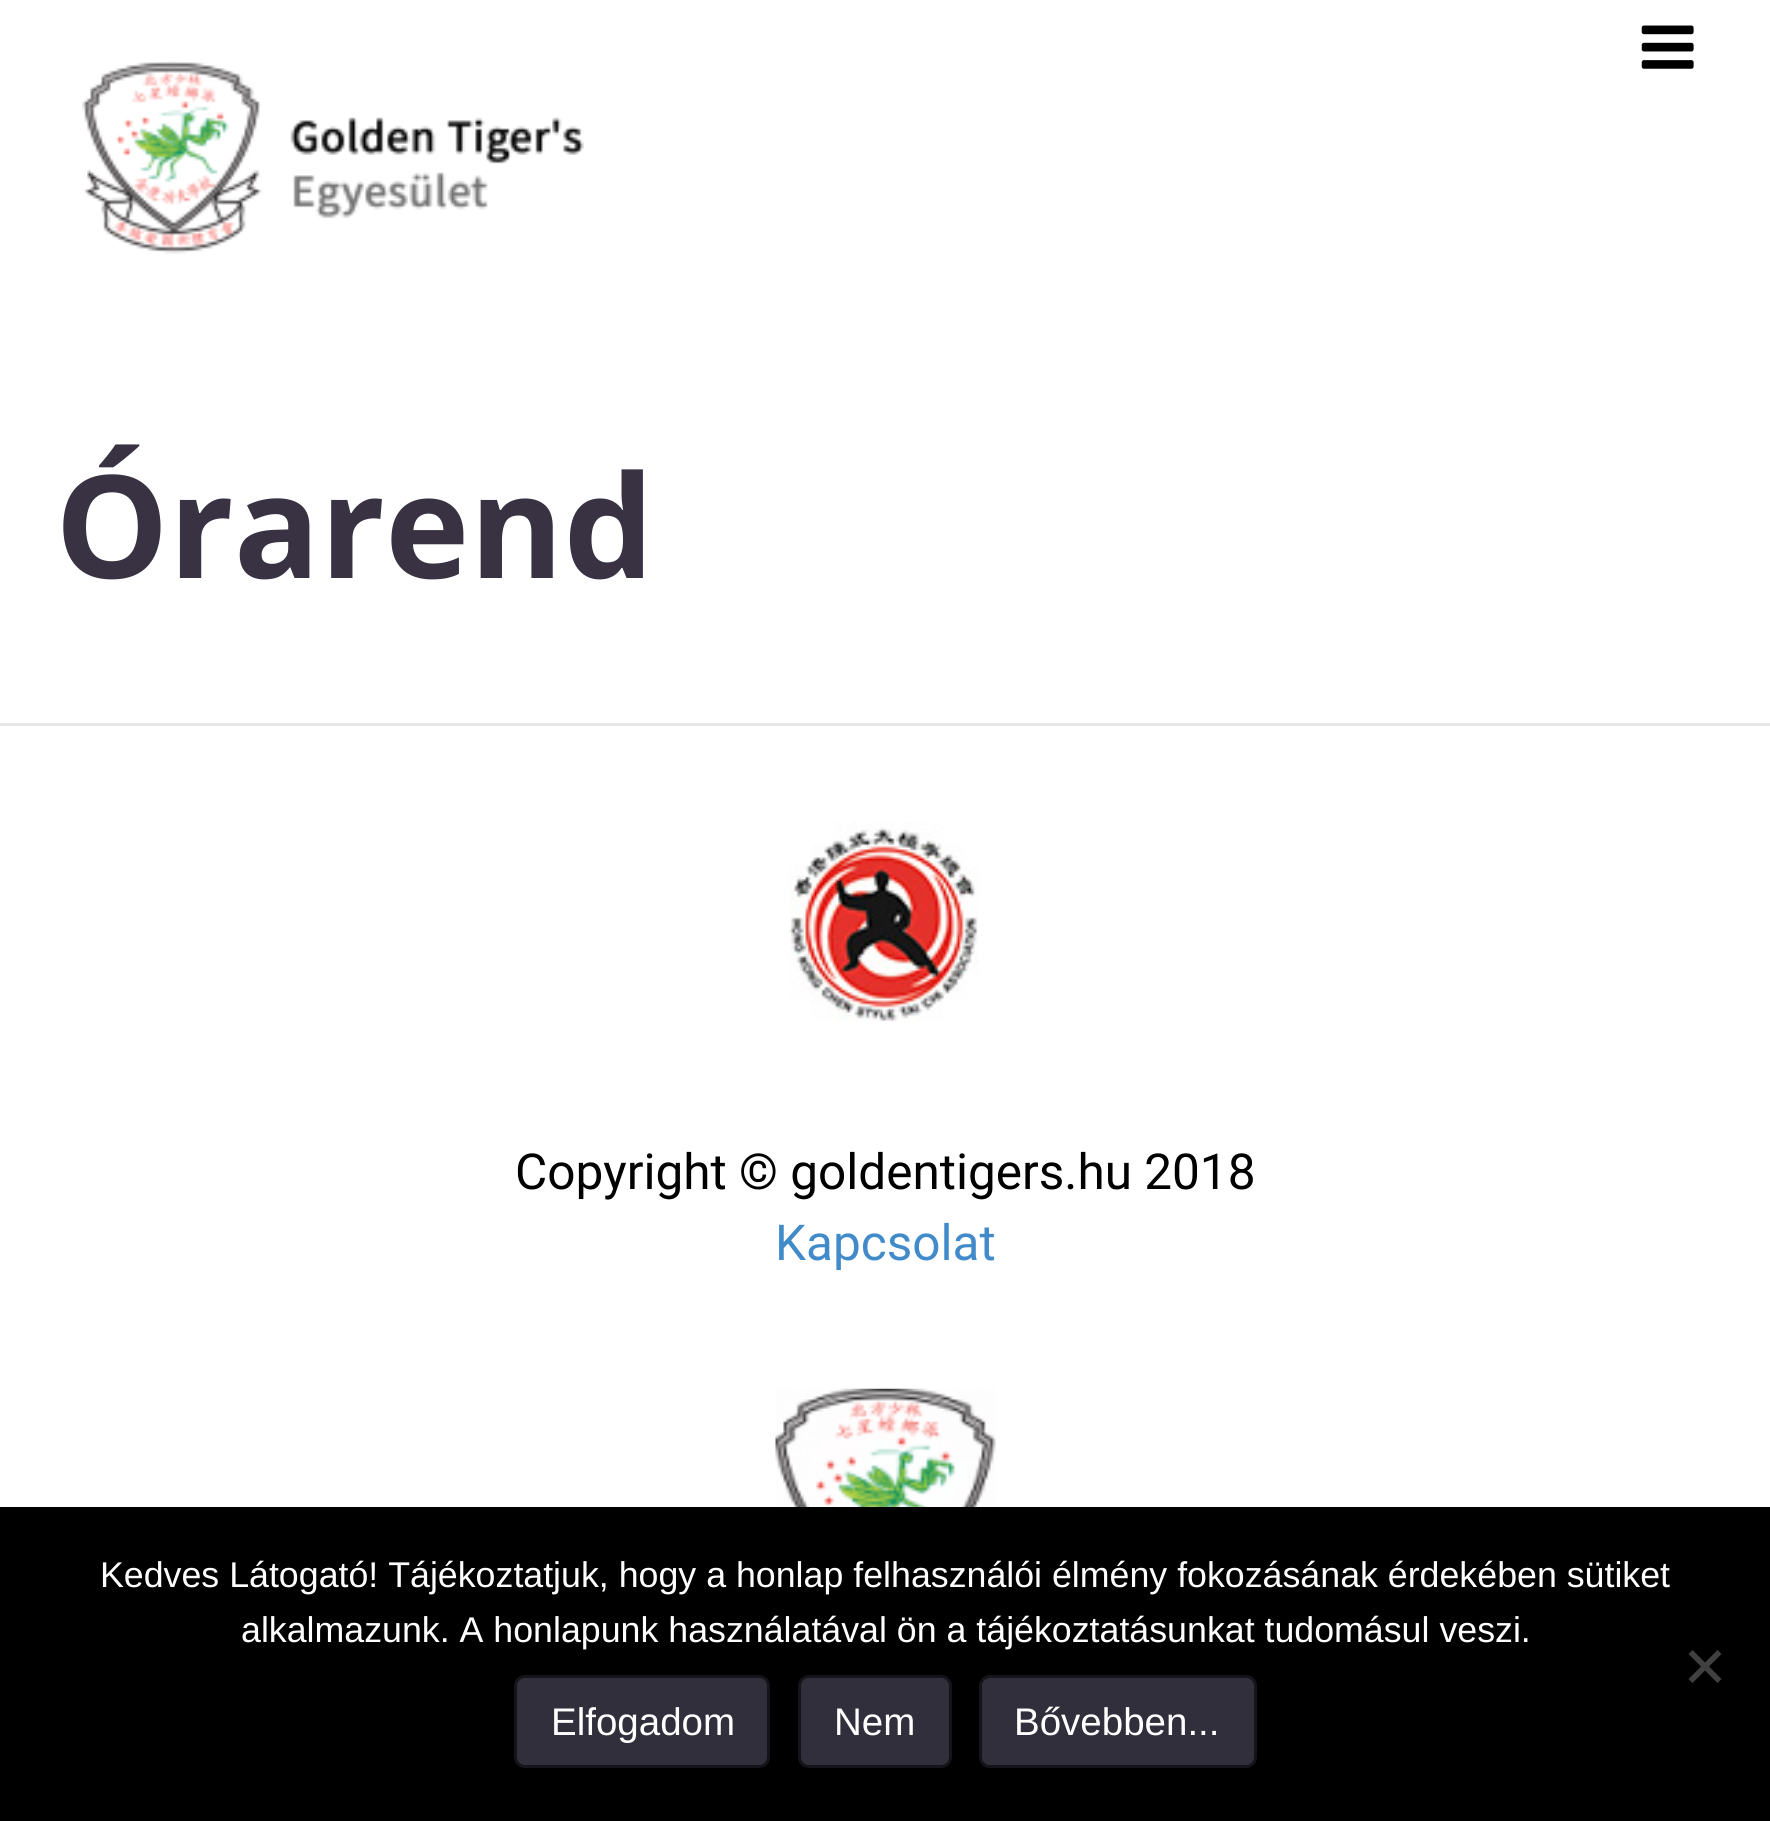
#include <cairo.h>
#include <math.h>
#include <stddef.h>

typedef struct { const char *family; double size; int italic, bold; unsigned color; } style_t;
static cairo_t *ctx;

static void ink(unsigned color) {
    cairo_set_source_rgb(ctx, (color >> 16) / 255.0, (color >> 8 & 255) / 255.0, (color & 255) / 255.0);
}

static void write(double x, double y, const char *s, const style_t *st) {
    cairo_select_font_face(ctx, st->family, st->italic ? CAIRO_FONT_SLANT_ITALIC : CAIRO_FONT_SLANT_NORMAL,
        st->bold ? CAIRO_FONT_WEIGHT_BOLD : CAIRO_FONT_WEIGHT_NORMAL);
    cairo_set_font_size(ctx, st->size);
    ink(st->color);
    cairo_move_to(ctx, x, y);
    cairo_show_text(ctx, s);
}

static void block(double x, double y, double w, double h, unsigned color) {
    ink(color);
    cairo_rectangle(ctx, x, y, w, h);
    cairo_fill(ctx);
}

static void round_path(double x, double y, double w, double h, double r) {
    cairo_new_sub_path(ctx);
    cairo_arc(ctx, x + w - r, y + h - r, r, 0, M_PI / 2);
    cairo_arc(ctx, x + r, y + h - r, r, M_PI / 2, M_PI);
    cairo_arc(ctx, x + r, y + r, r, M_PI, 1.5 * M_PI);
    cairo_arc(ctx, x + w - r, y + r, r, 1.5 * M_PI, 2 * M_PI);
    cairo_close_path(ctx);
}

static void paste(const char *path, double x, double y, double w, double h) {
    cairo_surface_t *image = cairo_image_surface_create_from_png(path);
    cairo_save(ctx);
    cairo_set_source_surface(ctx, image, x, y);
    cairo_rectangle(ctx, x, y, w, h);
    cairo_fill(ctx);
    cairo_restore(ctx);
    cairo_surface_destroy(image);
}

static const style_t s1 = {"Open Sans", 143, 0, 1, 0x383243};
static const style_t s2 = {"Roboto", 49.5, 0, 0, 0x000000};
static const style_t s3 = {"Roboto", 49.5, 0, 0, 0x428bca};
static const style_t s4 = {"Liberation Sans", 35.75, 0, 0, 0xffffff};
static const style_t s5 = {"Liberation Sans", 38.5, 0, 0, 0xffffff};

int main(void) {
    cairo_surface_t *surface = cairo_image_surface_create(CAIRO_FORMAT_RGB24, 1770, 1821);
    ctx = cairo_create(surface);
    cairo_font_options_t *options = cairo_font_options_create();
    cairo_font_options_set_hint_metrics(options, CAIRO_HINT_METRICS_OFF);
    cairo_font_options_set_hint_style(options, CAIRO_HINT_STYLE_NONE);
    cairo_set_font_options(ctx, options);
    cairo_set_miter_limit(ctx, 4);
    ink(0xffffff);
    cairo_paint(ctx);
    paste("pic1.png", 1641, 25, 53, 44);
    paste("pic2.png", 82, 61, 502, 193);
    write(55, 578, "Órarend", &s1);
    block(0, 723, 1770, 3, 0xe6e6e6);
    paste("pic3.png", 789, 822, 190, 200);
    write(515, 1189, "Copyright © goldentigers.hu 2018", &s2);
    write(775, 1260, "Kapcsolat", &s3);
    paste("pic4.png", 775, 1388, 221, 119);
    block(0, 1507, 1770, 314, 0x000000);
    write(100, 1587, "Kedves Látogató! Tájékoztatjuk, hogy a honlap felhasználói élmény fokozásának érdekében sütiket", &s4);
    write(241, 1642, "alkalmazunk. A honlapunk használatával ön a tájékoztatásunkat tudomásul veszi.", &s4);
    ink(0x404040);
    cairo_new_path(ctx);
    cairo_move_to(ctx, 1717.5, 1650);
    cairo_line_to(ctx, 1721.5, 1654);
    cairo_line_to(ctx, 1692.5, 1683);
    cairo_line_to(ctx, 1688.5, 1679);
    cairo_close_path(ctx);
    cairo_fill(ctx);
    cairo_new_path(ctx);
    cairo_move_to(ctx, 1688.5, 1654);
    cairo_line_to(ctx, 1692.5, 1650);
    cairo_line_to(ctx, 1721.5, 1679);
    cairo_line_to(ctx, 1717.5, 1683);
    cairo_close_path(ctx);
    cairo_fill(ctx);
    ink(0x322f3c);
    round_path(515.5, 1676.5, 253, 90, 9.5);
    cairo_fill_preserve(ctx);
    ink(0x15141a);
    cairo_set_line_width(ctx, 3);
    cairo_stroke(ctx);
    write(551, 1735, "Elfogadom", &s5);
    ink(0x322f3c);
    round_path(799.5, 1676.5, 151, 90, 9.5);
    cairo_fill_preserve(ctx);
    ink(0x15141a);
    cairo_stroke(ctx);
    write(834, 1735, "Nem", &s5);
    ink(0x322f3c);
    round_path(980.5, 1676.5, 275, 90, 9.5);
    cairo_fill_preserve(ctx);
    ink(0x15141a);
    cairo_stroke(ctx);
    write(1014, 1735, "Bővebben...", &s5);
    cairo_surface_write_to_png(surface, "screenshot.png");
    cairo_font_options_destroy(options);
    cairo_destroy(ctx);
    cairo_surface_destroy(surface);
    return 0;
}
